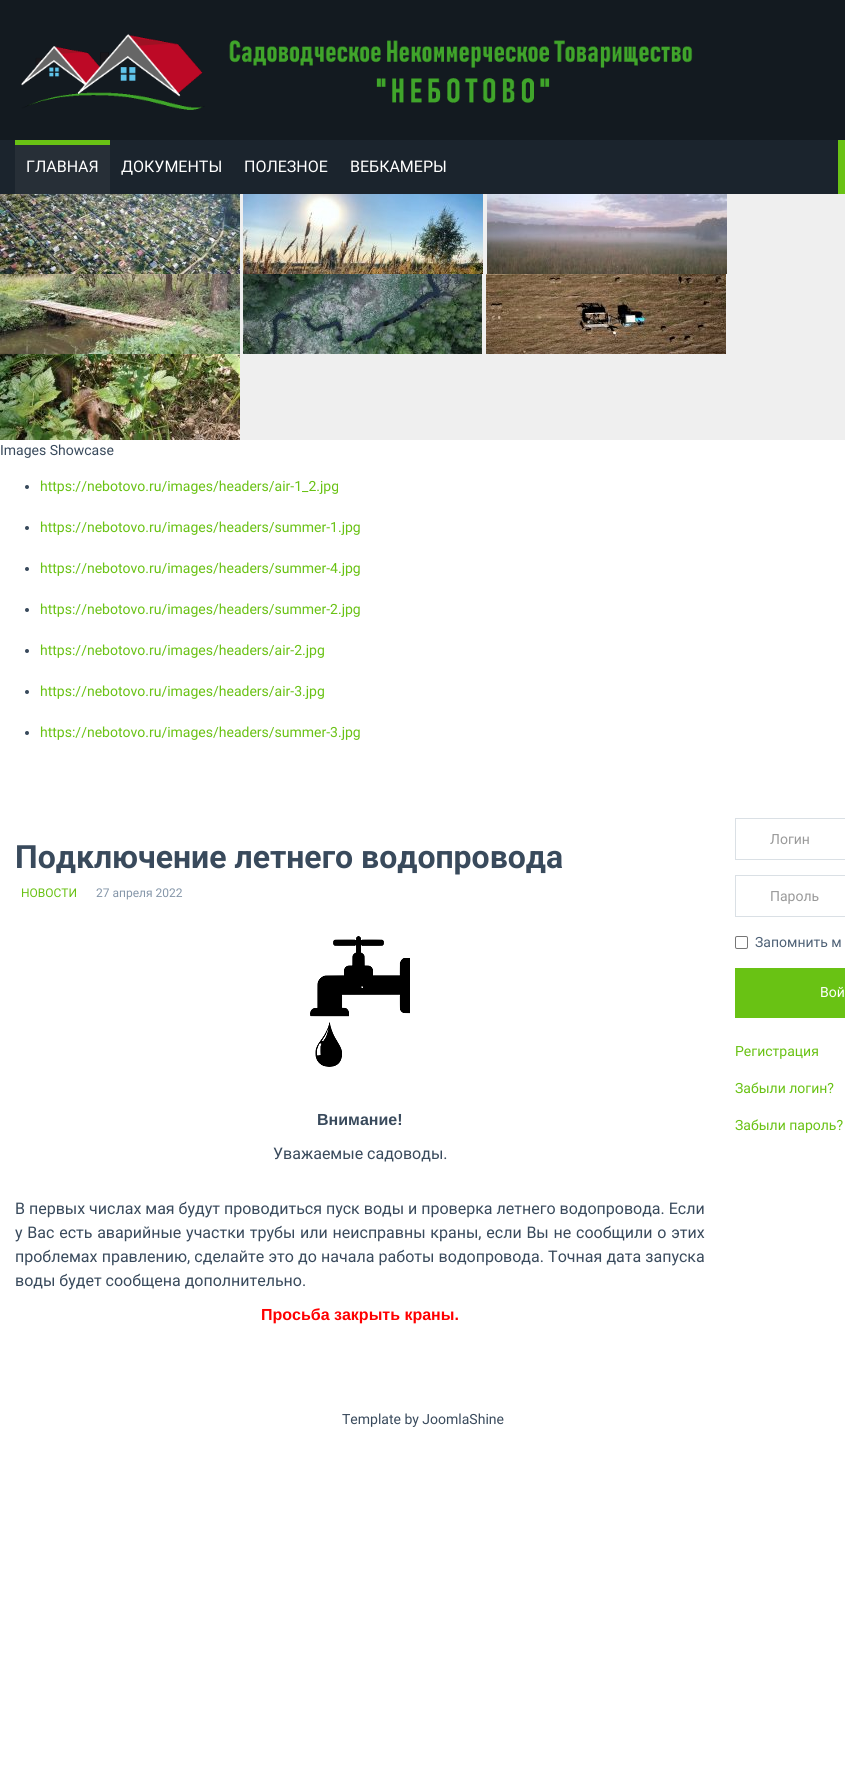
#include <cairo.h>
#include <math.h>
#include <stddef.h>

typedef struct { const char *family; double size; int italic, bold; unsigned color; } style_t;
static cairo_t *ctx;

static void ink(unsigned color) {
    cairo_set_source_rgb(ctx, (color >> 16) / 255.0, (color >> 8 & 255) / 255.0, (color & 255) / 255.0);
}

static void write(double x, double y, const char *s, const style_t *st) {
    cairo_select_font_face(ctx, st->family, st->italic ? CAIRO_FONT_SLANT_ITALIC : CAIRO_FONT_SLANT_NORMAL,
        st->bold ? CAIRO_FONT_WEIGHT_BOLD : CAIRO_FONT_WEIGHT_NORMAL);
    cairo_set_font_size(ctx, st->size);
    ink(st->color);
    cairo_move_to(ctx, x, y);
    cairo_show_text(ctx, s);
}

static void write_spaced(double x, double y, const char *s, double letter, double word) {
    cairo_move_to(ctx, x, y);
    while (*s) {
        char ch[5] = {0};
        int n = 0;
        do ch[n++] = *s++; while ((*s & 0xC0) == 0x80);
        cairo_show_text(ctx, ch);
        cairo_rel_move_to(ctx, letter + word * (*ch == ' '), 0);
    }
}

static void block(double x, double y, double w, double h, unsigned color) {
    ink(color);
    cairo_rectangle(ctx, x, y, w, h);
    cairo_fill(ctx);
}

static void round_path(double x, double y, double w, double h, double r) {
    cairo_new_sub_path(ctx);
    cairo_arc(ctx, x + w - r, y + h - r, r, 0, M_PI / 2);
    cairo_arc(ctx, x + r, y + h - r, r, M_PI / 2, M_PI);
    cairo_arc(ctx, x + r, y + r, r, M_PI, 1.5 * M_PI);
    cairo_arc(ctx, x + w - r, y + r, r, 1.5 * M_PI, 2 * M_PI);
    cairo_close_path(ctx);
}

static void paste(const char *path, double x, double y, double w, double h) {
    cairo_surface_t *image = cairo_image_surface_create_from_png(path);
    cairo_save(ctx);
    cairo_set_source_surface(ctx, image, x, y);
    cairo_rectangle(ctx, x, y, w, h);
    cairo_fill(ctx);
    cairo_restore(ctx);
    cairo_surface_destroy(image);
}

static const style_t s1 = {"Roboto", 16, 0, 0, 0xffffff};
static const style_t s2 = {"Roboto", 14, 0, 0, 0x394a5c};
static const style_t s3 = {"Roboto", 14, 0, 0, 0x69c214};
static const style_t s4 = {"Roboto", 32, 0, 1, 0x394a5c};
static const style_t s5 = {"Roboto", 12, 0, 0, 0x69c214};
static const style_t s6 = {"Roboto", 12, 0, 0, 0x8596a9};
static const style_t s7 = {"Liberation Sans", 16, 0, 1, 0x394a5c};
static const style_t s8 = {"Roboto", 16, 0, 0, 0x394a5c};
static const style_t s9 = {"Liberation Sans", 16, 0, 1, 0xff0000};
static const style_t s10 = {"Roboto", 14, 0, 0, 0x999999};
static const style_t s11 = {"Roboto", 14, 0, 0, 0x4e6176};
static const style_t s12 = {"Roboto", 14, 0, 0, 0xffffff};

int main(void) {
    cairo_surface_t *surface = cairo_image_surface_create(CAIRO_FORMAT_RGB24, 845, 1788);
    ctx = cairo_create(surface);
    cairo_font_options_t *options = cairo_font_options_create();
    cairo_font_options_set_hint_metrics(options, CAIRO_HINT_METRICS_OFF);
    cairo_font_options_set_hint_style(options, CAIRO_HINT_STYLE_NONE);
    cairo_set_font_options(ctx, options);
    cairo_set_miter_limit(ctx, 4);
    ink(0xffffff);
    cairo_paint(ctx);
    block(0, 0, 845, 140, 0x131a20);
    paste("pic1.png", 21, 34, 672, 76);
    block(0, 140, 838, 54, 0x1b242d);
    block(15, 145, 95, 49, 0x272f37);
    block(15, 140, 95, 5, 0x69c214);
    write(26, 172, "ГЛАВНАЯ", &s1);
    write(121, 172, "ДОКУМЕНТЫ", &s1);
    write(244, 172, "ПОЛЕЗНОЕ", &s1);
    write(350, 172, "ВЕБКАМЕРЫ", &s1);
    block(838, 140, 7, 54, 0x69c214);
    block(240, 194, 605, 246, 0xefefef);
    paste("pic2.png", 0, 194, 240, 80);
    paste("pic3.png", 243, 194, 240, 80);
    paste("pic4.png", 487, 194, 240, 80);
    paste("pic5.png", 0, 274, 240, 80);
    paste("pic6.png", 243, 274, 239, 80);
    paste("pic7.png", 486, 274, 240, 80);
    paste("pic8.png", 0, 354, 240, 86);
    write(0, 455, "Images Showcase", &s2);
    cairo_new_path(ctx);
    cairo_arc(ctx, 27, 487, 2, 0, 2 * M_PI);
    cairo_fill(ctx);
    write(40, 491, "https://nebotovo.ru/images/headers/air-1_2.jpg", &s3);
    ink(0x394a5c);
    cairo_new_path(ctx);
    cairo_arc(ctx, 27, 528, 2, 0, 2 * M_PI);
    cairo_fill(ctx);
    write(40, 532, "https://nebotovo.ru/images/headers/summer-1.jpg", &s3);
    ink(0x394a5c);
    cairo_new_path(ctx);
    cairo_arc(ctx, 27, 569, 2, 0, 2 * M_PI);
    cairo_fill(ctx);
    write(40, 573, "https://nebotovo.ru/images/headers/summer-4.jpg", &s3);
    ink(0x394a5c);
    cairo_new_path(ctx);
    cairo_arc(ctx, 27, 610, 2, 0, 2 * M_PI);
    cairo_fill(ctx);
    write(40, 614, "https://nebotovo.ru/images/headers/summer-2.jpg", &s3);
    ink(0x394a5c);
    cairo_new_path(ctx);
    cairo_arc(ctx, 27, 651, 2, 0, 2 * M_PI);
    cairo_fill(ctx);
    write(40, 655, "https://nebotovo.ru/images/headers/air-2.jpg", &s3);
    ink(0x394a5c);
    cairo_new_path(ctx);
    cairo_arc(ctx, 27, 692, 2, 0, 2 * M_PI);
    cairo_fill(ctx);
    write(40, 696, "https://nebotovo.ru/images/headers/air-3.jpg", &s3);
    ink(0x394a5c);
    cairo_new_path(ctx);
    cairo_arc(ctx, 27, 733, 2, 0, 2 * M_PI);
    cairo_fill(ctx);
    write(40, 737, "https://nebotovo.ru/images/headers/summer-3.jpg", &s3);
    write(15, 868, "Подключение летнего водопровода", &s4);
    write(21, 897, "НОВОСТИ", &s5);
    write(96, 897, "27 апреля 2022", &s6);
    paste("pic9.png", 310, 936, 100, 131);
    write(317, 1125, "Внимание!", &s7);
    write(273, 1159, "Уважаемые садоводы.", &s8);
    write(15, 1214, "В первых числах мая будут проводиться пуск воды и проверка летнего водопровода. Если", &s8);
    write_spaced(15, 1238, "у Вас есть аварийные участки трубы или неисправны краны, если Вы не сообщили о этих", 0, 0.8);
    write_spaced(15, 1262, "проблемах правлению, сделайте это до начала работы водопровода. Точная дата запуска", 0, 0.25);
    write(15, 1286, "воды будет сообщена дополнительно.", &s8);
    write(261, 1320, "Просьба закрыть краны.", &s9);
    cairo_rectangle(ctx, 735.5, 818.5, 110, 41);
    ink(0xdae0e5);
    cairo_set_line_width(ctx, 1);
    cairo_stroke(ctx);
    write(770, 844, "Логин", &s10);
    cairo_rectangle(ctx, 735.5, 875.5, 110, 41);
    ink(0xdae0e5);
    cairo_stroke(ctx);
    write(770, 901, "Пароль", &s10);
    round_path(735.5, 936.5, 12, 12, 1.5);
    ink(0x767676);
    cairo_stroke(ctx);
    write(755, 947, "Запомнить м", &s11);
    block(735, 968, 110, 50, 0x69c214);
    write(820, 997, "Вой", &s12);
    write(735, 1056, "Регистрация", &s3);
    write(735, 1093, "Забыли логин?", &s3);
    write(735, 1130, "Забыли пароль?", &s3);
    write(342, 1424, "Template by JoomlaShine", &s2);
    cairo_surface_write_to_png(surface, "screenshot.png");
    cairo_font_options_destroy(options);
    cairo_destroy(ctx);
    cairo_surface_destroy(surface);
    return 0;
}
